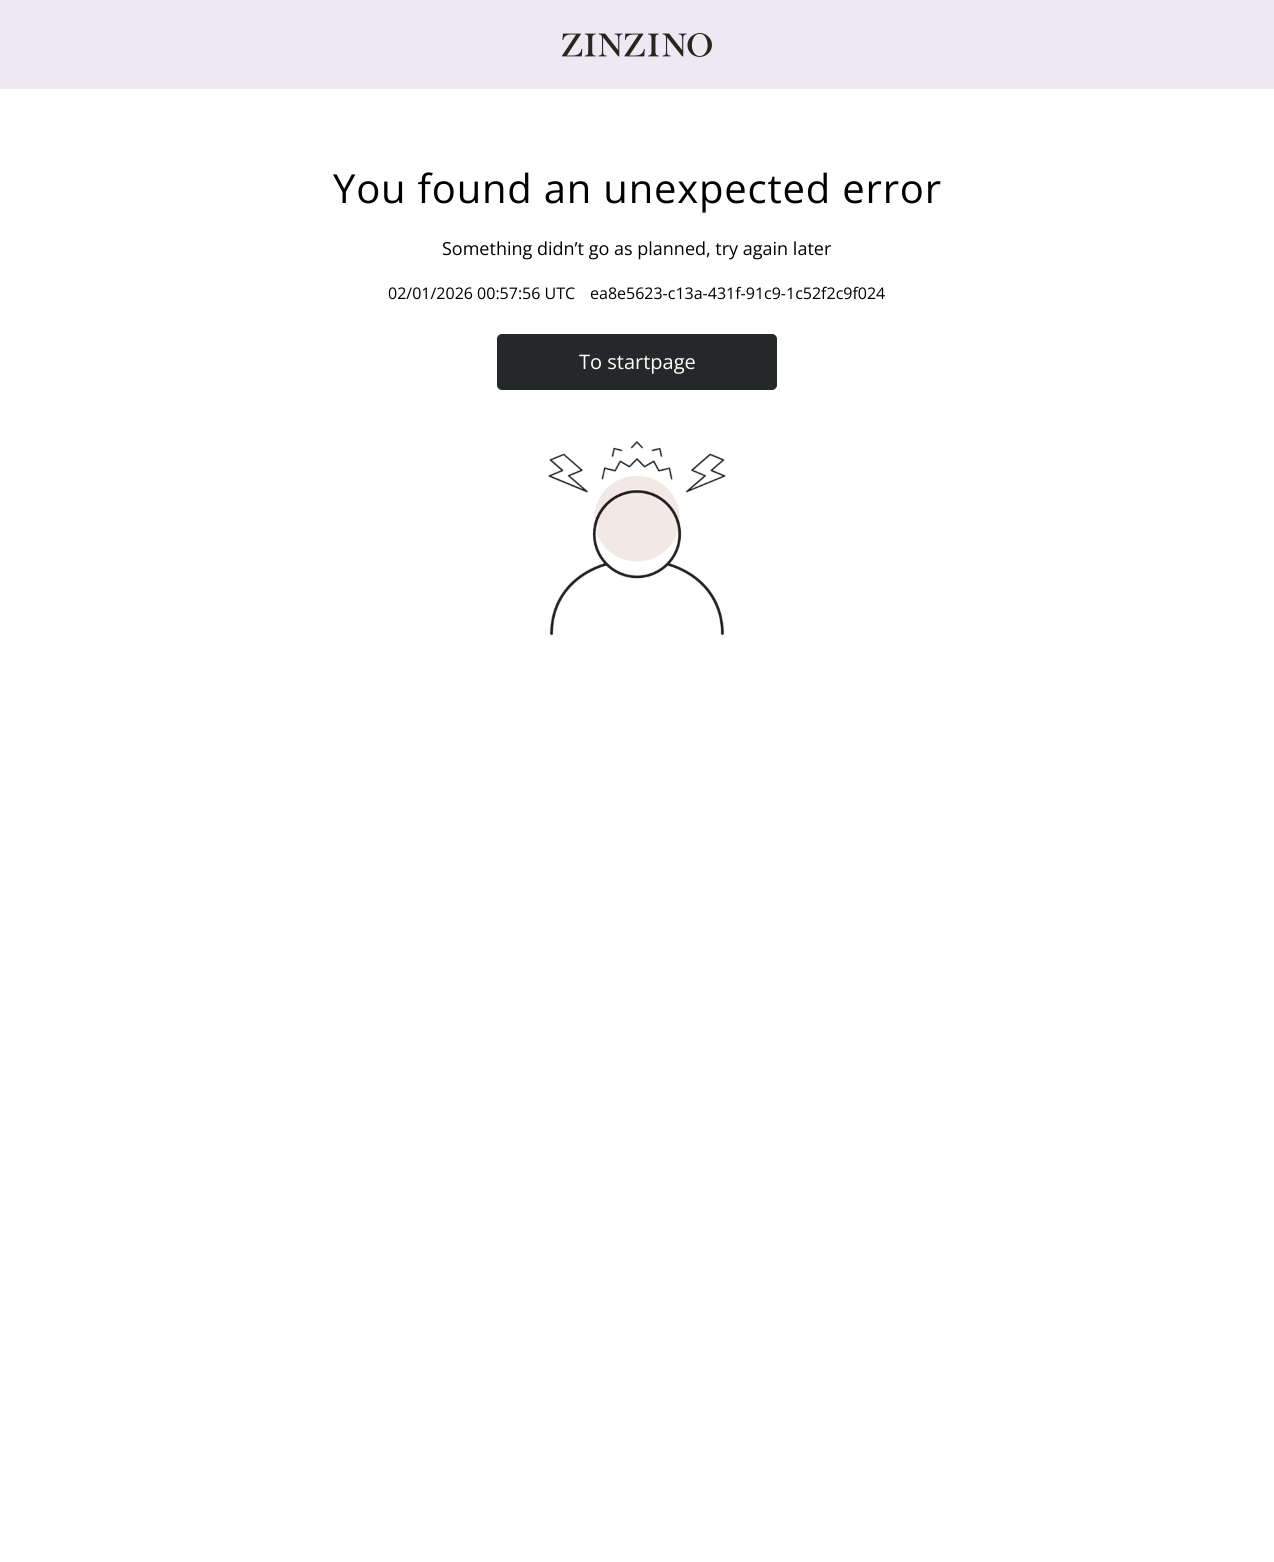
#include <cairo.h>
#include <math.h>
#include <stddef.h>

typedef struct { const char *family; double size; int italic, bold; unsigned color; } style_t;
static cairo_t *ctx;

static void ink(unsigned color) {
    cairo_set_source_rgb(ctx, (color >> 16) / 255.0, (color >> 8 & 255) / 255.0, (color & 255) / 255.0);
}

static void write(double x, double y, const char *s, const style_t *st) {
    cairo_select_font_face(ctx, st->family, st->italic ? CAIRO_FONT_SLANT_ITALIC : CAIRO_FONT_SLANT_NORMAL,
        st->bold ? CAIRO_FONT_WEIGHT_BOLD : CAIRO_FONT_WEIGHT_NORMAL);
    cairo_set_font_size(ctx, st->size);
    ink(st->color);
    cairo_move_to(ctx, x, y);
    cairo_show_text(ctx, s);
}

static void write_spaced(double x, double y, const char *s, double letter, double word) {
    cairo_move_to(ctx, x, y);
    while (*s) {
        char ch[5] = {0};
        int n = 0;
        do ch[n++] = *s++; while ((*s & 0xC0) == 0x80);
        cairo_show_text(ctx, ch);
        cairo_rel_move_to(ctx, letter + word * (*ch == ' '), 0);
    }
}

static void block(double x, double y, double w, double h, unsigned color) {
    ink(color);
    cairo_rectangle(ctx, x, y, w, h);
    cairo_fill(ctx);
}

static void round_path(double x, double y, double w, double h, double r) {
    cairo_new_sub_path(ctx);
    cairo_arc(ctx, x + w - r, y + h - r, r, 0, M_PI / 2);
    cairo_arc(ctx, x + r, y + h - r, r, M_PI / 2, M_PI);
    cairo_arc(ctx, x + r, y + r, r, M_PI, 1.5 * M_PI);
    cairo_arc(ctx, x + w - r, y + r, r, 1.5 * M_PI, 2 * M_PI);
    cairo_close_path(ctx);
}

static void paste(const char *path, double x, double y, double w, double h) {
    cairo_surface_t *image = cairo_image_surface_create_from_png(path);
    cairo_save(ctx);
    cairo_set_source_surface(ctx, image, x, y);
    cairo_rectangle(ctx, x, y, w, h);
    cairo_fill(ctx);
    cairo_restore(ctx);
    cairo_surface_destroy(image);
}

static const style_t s1 = {"Open Sans", 18, 0, 0, 0x000000};
static const style_t s2 = {"Open Sans", 16, 0, 0, 0x000000};
static const style_t s3 = {"Open Sans", 20, 0, 0, 0xffffff};

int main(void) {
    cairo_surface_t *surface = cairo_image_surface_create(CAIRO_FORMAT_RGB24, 1274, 1562);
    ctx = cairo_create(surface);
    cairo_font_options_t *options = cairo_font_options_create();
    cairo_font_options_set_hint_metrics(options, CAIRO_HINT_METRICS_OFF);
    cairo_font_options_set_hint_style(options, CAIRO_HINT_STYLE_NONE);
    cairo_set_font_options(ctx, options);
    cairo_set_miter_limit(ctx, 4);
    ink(0xffffff);
    cairo_paint(ctx);
    block(0, 0, 1274, 89, 0xece9f2);
    paste("pic1.png", 562, 33, 150, 24);
    cairo_select_font_face(ctx, "Open Sans", CAIRO_FONT_SLANT_NORMAL, CAIRO_FONT_WEIGHT_NORMAL);
    cairo_set_font_size(ctx, 40);
    ink(0x000000);
    write_spaced(333, 203, "You found an unexpected error", 0.8, 0);
    write(442, 255, "Something didn’t go as planned, try again later", &s1);
    write(388, 299, "02/01/2026 00:57:56 UTC", &s2);
    write(590, 299, "ea8e5623-c13a-431f-91c9-1c52f2c9f024", &s2);
    ink(0x242829);
    round_path(497.5, 334.5, 279, 55, 4.5);
    cairo_fill_preserve(ctx);
    cairo_set_line_width(ctx, 1);
    cairo_stroke(ctx);
    write(579, 369, "To startpage", &s3);
    paste("pic2.png", 548, 441, 178, 195);
    cairo_surface_write_to_png(surface, "screenshot.png");
    cairo_font_options_destroy(options);
    cairo_destroy(ctx);
    cairo_surface_destroy(surface);
    return 0;
}
